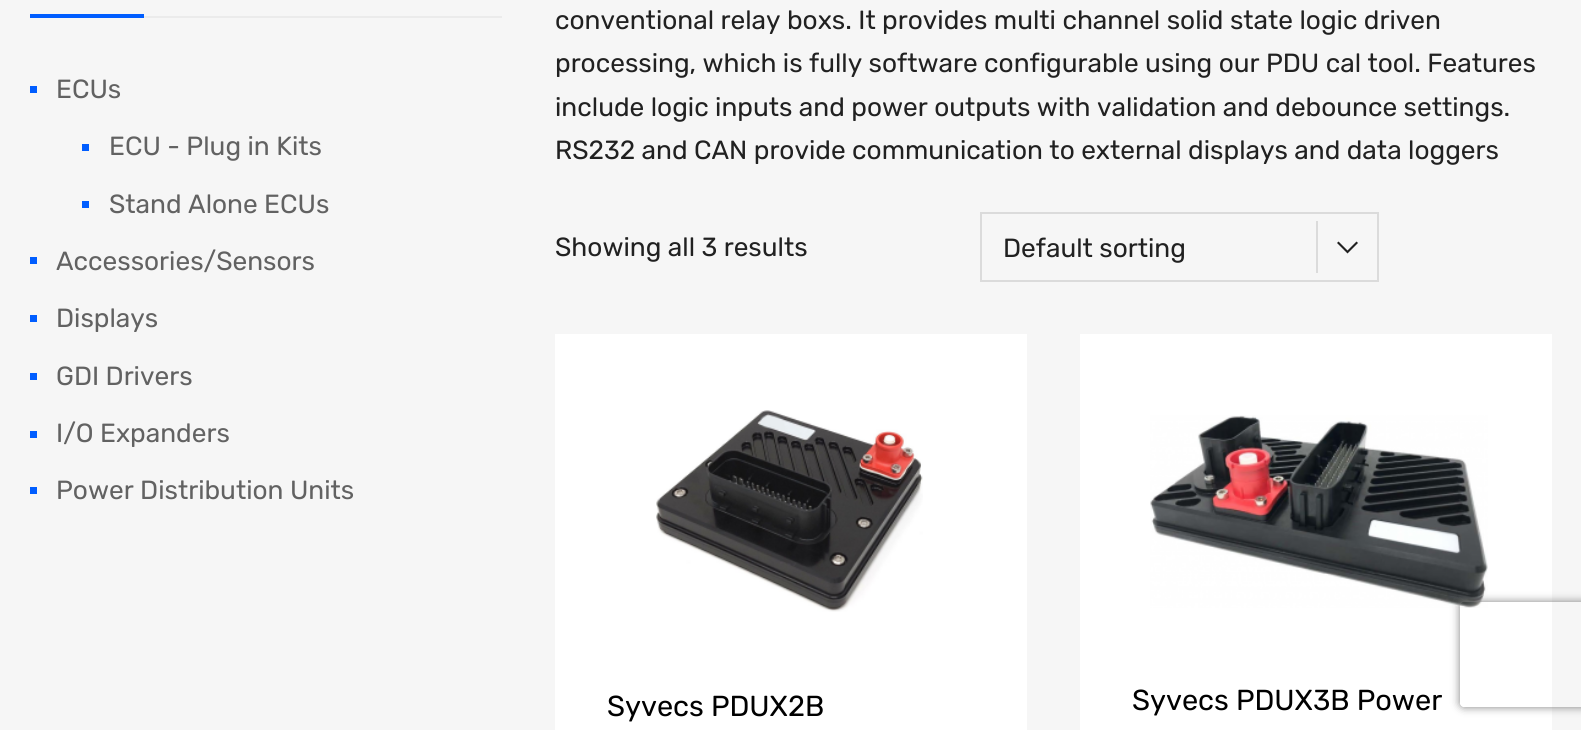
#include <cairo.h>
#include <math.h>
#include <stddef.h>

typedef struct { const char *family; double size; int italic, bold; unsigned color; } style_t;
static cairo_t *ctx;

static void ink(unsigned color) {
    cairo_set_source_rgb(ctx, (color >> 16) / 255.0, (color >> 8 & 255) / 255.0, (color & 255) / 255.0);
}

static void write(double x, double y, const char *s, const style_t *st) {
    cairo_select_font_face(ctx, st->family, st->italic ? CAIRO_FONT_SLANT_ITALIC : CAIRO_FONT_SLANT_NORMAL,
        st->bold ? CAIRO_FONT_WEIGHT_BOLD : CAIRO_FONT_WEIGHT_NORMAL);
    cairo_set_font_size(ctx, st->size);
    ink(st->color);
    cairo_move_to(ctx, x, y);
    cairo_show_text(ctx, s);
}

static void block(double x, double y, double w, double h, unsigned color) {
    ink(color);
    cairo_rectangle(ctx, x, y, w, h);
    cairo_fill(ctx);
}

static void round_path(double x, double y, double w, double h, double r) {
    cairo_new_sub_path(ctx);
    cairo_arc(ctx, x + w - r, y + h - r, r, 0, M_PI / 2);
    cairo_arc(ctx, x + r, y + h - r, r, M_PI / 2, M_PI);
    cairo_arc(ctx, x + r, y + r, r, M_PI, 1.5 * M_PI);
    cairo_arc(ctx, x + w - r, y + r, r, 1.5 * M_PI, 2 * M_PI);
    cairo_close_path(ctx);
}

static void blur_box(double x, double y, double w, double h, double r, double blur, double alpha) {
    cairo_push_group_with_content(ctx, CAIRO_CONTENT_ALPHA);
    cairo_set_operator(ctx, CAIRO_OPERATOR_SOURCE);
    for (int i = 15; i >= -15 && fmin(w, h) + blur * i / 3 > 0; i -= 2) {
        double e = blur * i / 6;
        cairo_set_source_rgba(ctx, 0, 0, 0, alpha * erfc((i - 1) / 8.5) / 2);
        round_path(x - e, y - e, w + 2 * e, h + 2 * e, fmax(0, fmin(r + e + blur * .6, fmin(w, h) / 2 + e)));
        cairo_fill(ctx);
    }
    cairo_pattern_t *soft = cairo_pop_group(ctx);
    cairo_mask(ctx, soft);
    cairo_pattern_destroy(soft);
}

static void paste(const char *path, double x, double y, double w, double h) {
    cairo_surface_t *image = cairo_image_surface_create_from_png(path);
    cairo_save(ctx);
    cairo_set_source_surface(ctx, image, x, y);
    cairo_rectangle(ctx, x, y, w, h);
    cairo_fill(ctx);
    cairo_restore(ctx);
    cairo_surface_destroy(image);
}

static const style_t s1 = {"Rubik", 26.25, 0, 0, 0x626262};
static const style_t s2 = {"Rubik", 26.25, 0, 0, 0x212121};
static const style_t s3 = {"Rubik", 28.9, 0, 0, 0x000000};

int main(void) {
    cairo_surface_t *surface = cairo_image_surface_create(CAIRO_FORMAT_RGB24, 1581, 730);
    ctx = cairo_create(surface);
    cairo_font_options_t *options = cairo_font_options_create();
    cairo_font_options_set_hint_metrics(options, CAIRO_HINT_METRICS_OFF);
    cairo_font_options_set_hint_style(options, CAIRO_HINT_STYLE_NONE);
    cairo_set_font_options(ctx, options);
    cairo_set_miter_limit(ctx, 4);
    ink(0xf6f6f6);
    cairo_paint(ctx);
    block(30, 14, 114, 4, 0x005dff);
    block(144, 16, 358, 2, 0xebebeb);
    block(30, 86, 7, 7, 0x005dff);
    write(56, 98, "ECUs", &s1);
    block(82, 144, 7, 7, 0x005dff);
    write(109, 155, "ECU - Plug in Kits", &s1);
    block(82, 201, 7, 7, 0x005dff);
    write(109, 213, "Stand Alone ECUs", &s1);
    block(30, 257, 7, 7, 0x005dff);
    write(56, 270, "Accessories/Sensors", &s1);
    block(30, 315, 7, 7, 0x005dff);
    write(56, 327, "Displays", &s1);
    block(30, 373, 7, 7, 0x005dff);
    write(56, 385, "GDI Drivers", &s1);
    block(30, 431, 7, 7, 0x005dff);
    write(56, 442, "I/O Expanders", &s1);
    block(30, 487, 7, 7, 0x005dff);
    write(56, 499, "Power Distribution Units", &s1);
    write(555, 29, "conventional relay boxs. It provides multi channel solid state logic driven", &s2);
    write(555, 72, "processing, which is fully software configurable using our PDU cal tool. Features", &s2);
    write(555, 116, "include logic inputs and power outputs with validation and debounce settings.", &s2);
    write(555, 159, "RS232 and CAN provide communication to external displays and data loggers", &s2);
    write(555, 256, "Showing all 3 results", &s2);
    block(1316, 221, 2, 52, 0xdbdbdb);
    ink(0x212121);
    cairo_new_path(ctx);
    cairo_move_to(ctx, 1337, 243);
    cairo_line_to(ctx, 1347.5, 253.5);
    cairo_line_to(ctx, 1358, 243);
    cairo_line_to(ctx, 1356.5, 241.5);
    cairo_line_to(ctx, 1347.5, 250.5);
    cairo_line_to(ctx, 1338.5, 241.5);
    cairo_close_path(ctx);
    cairo_fill(ctx);
    cairo_rectangle(ctx, 981, 213, 397, 68);
    ink(0xdbdbdb);
    cairo_stroke(ctx);
    write(1003, 257, "Default sorting", &s2);
    block(555, 334, 472, 396, 0xffffff);
    paste("pic1.png", 656, 410, 267, 202);
    write(607, 716, "Syvecs PDUX2B", &s3);
    block(1080, 334, 472, 396, 0xffffff);
    paste("pic2.png", 1150, 415, 338, 193);
    write(1132, 710, "Syvecs PDUX3B Power", &s3);
    cairo_save(ctx);
    cairo_set_fill_rule(ctx, CAIRO_FILL_RULE_EVEN_ODD);
    cairo_new_path(ctx);
    cairo_move_to(ctx, 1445, 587);
    cairo_line_to(ctx, 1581, 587);
    cairo_line_to(ctx, 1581, 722);
    cairo_line_to(ctx, 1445, 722);
    cairo_close_path(ctx);
    cairo_move_to(ctx, 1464, 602);
    cairo_line_to(ctx, 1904, 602);
    cairo_curve_to(ctx, 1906, 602, 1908, 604, 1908, 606);
    cairo_line_to(ctx, 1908, 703);
    cairo_curve_to(ctx, 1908, 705, 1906, 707, 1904, 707);
    cairo_line_to(ctx, 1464, 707);
    cairo_curve_to(ctx, 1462, 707, 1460, 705, 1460, 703);
    cairo_line_to(ctx, 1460, 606);
    cairo_curve_to(ctx, 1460, 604, 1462, 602, 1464, 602);
    cairo_close_path(ctx);
    cairo_clip(ctx);
    ink(0x808080);
    blur_box(1460, 602, 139, 105, 4, 4.5, 1);
    cairo_restore(ctx);
    cairo_surface_write_to_png(surface, "screenshot.png");
    cairo_font_options_destroy(options);
    cairo_destroy(ctx);
    cairo_surface_destroy(surface);
    return 0;
}
